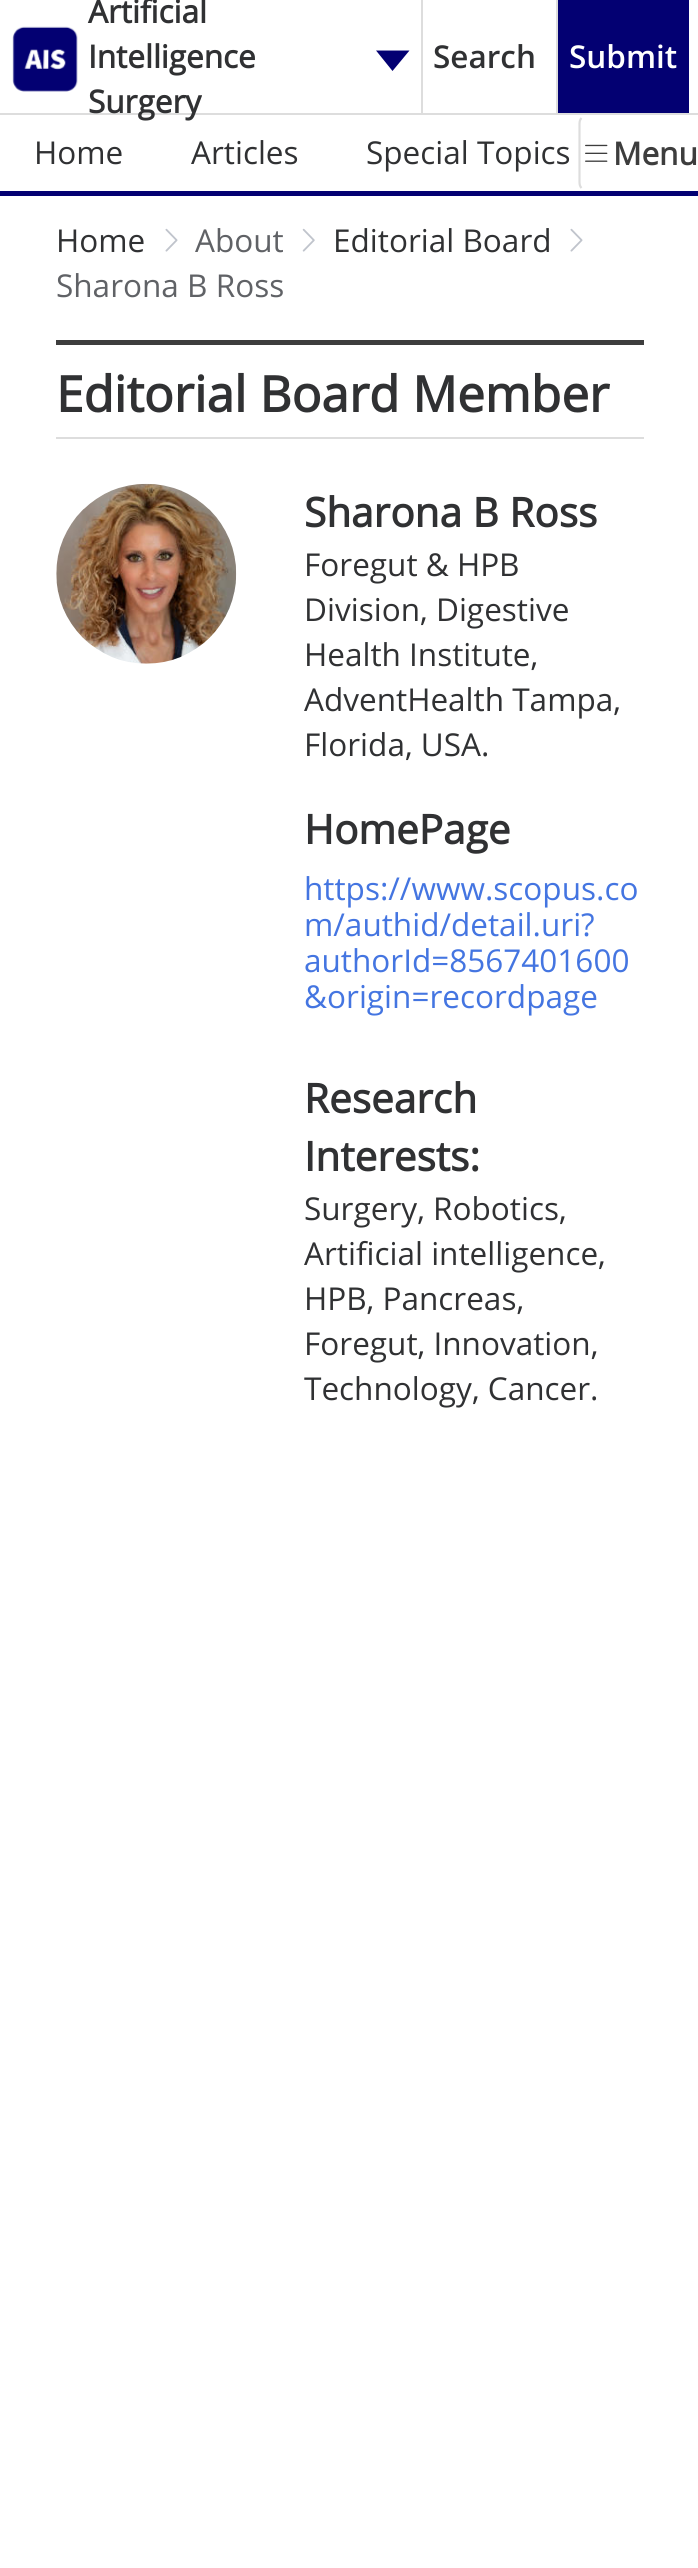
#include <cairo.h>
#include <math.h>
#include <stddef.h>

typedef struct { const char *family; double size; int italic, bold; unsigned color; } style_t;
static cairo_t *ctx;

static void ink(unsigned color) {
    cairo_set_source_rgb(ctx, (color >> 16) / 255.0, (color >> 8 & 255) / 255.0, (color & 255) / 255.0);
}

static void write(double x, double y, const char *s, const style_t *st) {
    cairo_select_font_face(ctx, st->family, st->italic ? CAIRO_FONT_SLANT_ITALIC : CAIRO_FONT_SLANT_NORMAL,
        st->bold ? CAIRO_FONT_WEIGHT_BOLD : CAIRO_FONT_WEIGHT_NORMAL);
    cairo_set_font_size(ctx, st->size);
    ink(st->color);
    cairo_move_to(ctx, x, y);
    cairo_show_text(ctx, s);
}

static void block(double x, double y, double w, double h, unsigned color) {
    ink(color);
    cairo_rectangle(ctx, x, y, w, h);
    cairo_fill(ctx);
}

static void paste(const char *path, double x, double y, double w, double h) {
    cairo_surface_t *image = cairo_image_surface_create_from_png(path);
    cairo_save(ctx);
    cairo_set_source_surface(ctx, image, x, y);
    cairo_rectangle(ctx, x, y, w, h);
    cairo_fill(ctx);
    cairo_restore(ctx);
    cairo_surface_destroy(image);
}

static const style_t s1 = {"Open Sans", 31.5, 0, 1, 0x303133};
static const style_t s2 = {"Open Sans SemiBold", 31.5, 0, 0, 0x303133};
static const style_t s3 = {"Open Sans SemiBold", 31.5, 0, 0, 0xffffff};
static const style_t s4 = {"Open Sans", 31.5, 0, 0, 0x303133};
static const style_t s5 = {"Open Sans", 31.5, 0, 1, 0x3d3d3d};
static const style_t s6 = {"Open Sans", 31.5, 0, 0, 0x606266};
static const style_t s7 = {"Open Sans", 49.5, 0, 1, 0x303133};
static const style_t s8 = {"Open Sans", 40.5, 0, 1, 0x303133};
static const style_t s9 = {"Open Sans", 31.5, 0, 0, 0x4475e1};

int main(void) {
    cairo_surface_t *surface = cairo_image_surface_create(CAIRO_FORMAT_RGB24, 698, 2568);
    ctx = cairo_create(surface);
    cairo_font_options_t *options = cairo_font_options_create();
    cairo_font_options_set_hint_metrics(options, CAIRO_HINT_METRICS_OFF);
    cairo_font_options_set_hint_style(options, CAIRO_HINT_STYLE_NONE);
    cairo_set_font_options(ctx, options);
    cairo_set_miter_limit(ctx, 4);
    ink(0xffffff);
    cairo_paint(ctx);
    block(0, 113, 698, 2, 0xdddddd);
    paste("pic1.png", 12, 26, 66, 66);
    write(88, 23, "Artificial", &s1);
    write(88, 68, "Intelligence", &s1);
    write(88, 113, "Surgery", &s1);
    ink(0x030072);
    cairo_new_path(ctx);
    cairo_move_to(ctx, 409.5, 50.5);
    cairo_line_to(ctx, 376, 50.5);
    cairo_line_to(ctx, 392.5, 71);
    cairo_close_path(ctx);
    cairo_fill(ctx);
    block(421, 0, 2, 113, 0xdddddd);
    write(433, 68, "Search", &s2);
    block(558, 0, 131, 113, 0x030072);
    block(556, 0, 2, 113, 0xdddddd);
    write(569, 68, "Submit", &s3);
    block(0, 191, 698, 5, 0x030072);
    write(34, 164, "Home", &s4);
    write(191, 164, "Articles", &s4);
    write(366, 164, "Special Topics", &s4);
    cairo_new_path(ctx);
    cairo_move_to(ctx, 581.5, 188);
    cairo_curve_to(ctx, 580, 186.5, 579.5, 184.5, 579.5, 182);
    cairo_line_to(ctx, 579.5, 124);
    cairo_curve_to(ctx, 579.5, 121.5, 580, 119.5, 581.5, 118);
    ink(0xdddddd);
    cairo_set_line_width(ctx, 2.2);
    cairo_stroke(ctx);
    paste("pic2.png", 585, 144, 23, 18);
    write(613, 165, "Menu", &s5);
    write(56, 252, "Home", &s4);
    paste("pic3.png", 165, 228, 13, 24);
    write(195, 252, "About", &s6);
    paste("pic4.png", 302, 228, 13, 24);
    write(333, 252, "Editorial Board", &s4);
    paste("pic3.png", 570, 228, 13, 24);
    write(56, 297, "Sharona B Ross", &s6);
    block(56, 340, 588, 5, 0x3d3d3d);
    write(56, 412, "Editorial Board Member", &s7);
    block(56, 437, 588, 2, 0xdddddd);
    paste("pic5.png", 56, 483, 181, 181);
    write(304, 527, "Sharona B Ross", &s8);
    write(304, 576, "Foregut & HPB", &s4);
    write(304, 621, "Division, Digestive", &s4);
    write(304, 666, "Health Institute,", &s4);
    write(304, 711, "AdventHealth Tampa,", &s4);
    write(304, 756, "Florida, USA.", &s4);
    write(304, 844, "HomePage", &s8);
    write(304, 900, "https://www.scopus.co", &s9);
    write(304, 936, "m/authid/detail.uri?", &s9);
    write(304, 972, "authorId=8567401600", &s9);
    write(304, 1008, "&origin=recordpage", &s9);
    write(304, 1113, "Research", &s8);
    write(304, 1171, "Interests:", &s8);
    write(304, 1220, "Surgery, Robotics,", &s4);
    write(304, 1265, "Artificial intelligence,", &s4);
    write(304, 1310, "HPB, Pancreas,", &s4);
    write(304, 1355, "Foregut, Innovation,", &s4);
    write(304, 1400, "Technology, Cancer.", &s4);
    cairo_surface_write_to_png(surface, "screenshot.png");
    cairo_font_options_destroy(options);
    cairo_destroy(ctx);
    cairo_surface_destroy(surface);
    return 0;
}
